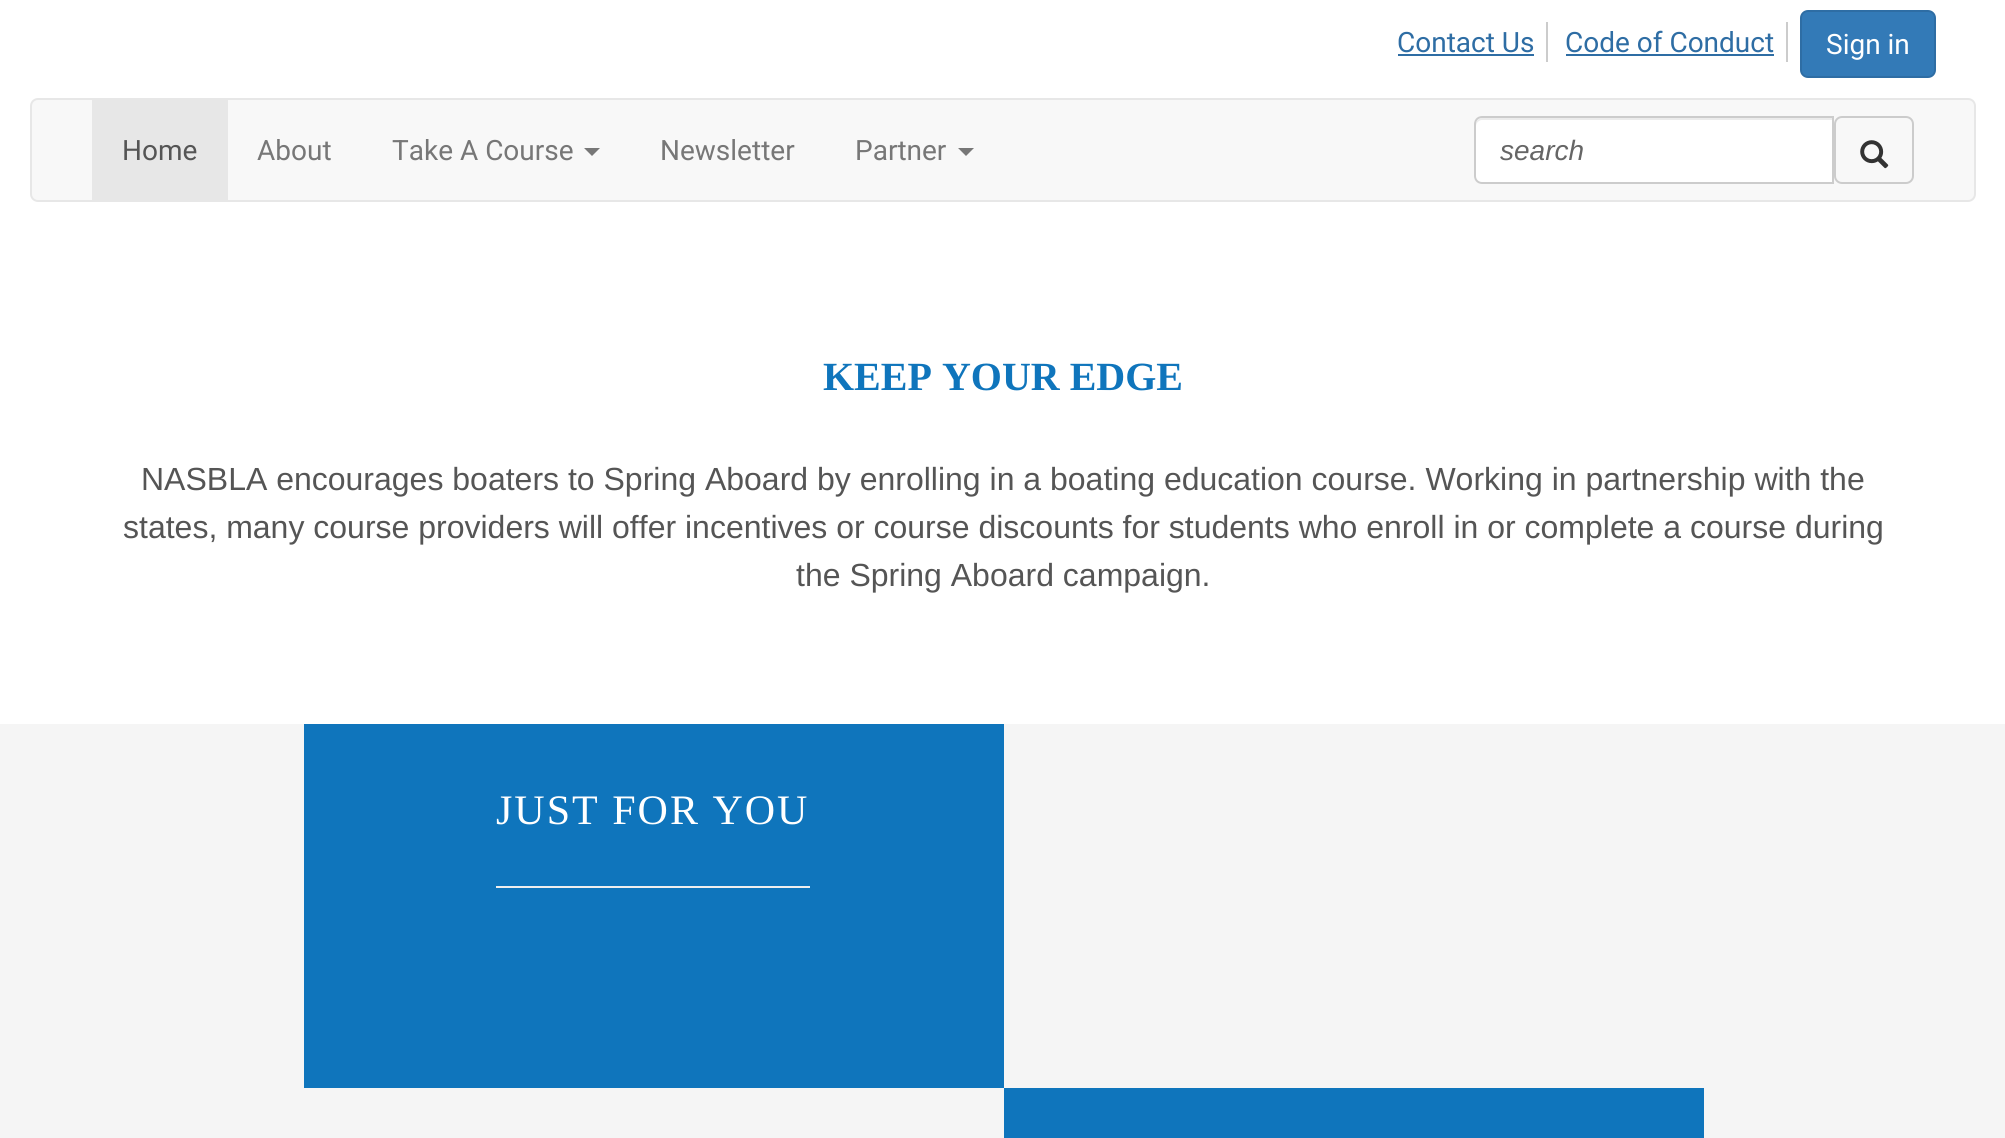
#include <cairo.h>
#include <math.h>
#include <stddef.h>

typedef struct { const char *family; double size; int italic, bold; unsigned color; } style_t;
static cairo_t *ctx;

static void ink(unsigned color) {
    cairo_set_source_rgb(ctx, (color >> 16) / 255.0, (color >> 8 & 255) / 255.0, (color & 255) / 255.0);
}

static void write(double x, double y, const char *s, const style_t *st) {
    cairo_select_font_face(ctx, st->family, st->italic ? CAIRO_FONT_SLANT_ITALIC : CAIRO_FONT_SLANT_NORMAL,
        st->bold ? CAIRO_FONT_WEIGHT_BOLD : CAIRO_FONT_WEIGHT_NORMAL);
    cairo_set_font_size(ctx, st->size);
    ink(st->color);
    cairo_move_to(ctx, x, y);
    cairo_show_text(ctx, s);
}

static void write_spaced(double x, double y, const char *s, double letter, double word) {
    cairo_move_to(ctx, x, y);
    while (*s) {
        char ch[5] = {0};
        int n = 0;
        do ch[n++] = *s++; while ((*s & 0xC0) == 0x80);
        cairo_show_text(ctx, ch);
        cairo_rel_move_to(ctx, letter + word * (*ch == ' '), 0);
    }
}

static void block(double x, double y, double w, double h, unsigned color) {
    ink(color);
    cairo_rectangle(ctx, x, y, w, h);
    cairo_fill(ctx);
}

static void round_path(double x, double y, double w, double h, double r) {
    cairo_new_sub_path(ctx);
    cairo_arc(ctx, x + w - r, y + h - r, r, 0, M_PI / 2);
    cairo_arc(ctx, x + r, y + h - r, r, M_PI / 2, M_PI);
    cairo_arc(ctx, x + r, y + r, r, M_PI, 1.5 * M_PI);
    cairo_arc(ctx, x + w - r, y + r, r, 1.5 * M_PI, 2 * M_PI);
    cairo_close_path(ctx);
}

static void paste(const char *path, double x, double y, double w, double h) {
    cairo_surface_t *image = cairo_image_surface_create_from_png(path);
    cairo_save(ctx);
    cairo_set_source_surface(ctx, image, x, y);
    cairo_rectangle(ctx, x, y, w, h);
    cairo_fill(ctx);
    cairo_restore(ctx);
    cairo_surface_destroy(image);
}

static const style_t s1 = {"Roboto", 28, 0, 0, 0x2e6da4};
static const style_t s2 = {"Roboto", 28, 0, 0, 0xffffff};
static const style_t s3 = {"Roboto", 28, 0, 0, 0x555555};
static const style_t s4 = {"Roboto", 28, 0, 0, 0x777777};
static const style_t s5 = {"Liberation Sans", 28, 1, 0, 0x666666};
static const style_t s6 = {"Liberation Serif", 40, 0, 1, 0x0f75bc};
static const style_t s7 = {"Liberation Sans", 32, 0, 0, 0x555555};

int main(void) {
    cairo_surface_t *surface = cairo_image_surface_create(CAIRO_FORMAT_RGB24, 2005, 1138);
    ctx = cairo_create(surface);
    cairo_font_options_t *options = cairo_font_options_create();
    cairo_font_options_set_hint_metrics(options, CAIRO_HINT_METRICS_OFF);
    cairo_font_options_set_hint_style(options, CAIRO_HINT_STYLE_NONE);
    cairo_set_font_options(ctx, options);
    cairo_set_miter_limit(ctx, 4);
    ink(0xffffff);
    cairo_paint(ctx);
    block(1546, 22, 2, 40, 0xcccccc);
    write(1397, 52, "Contact Us", &s1);
    block(1398, 54, 136, 2, 0x2e6da4);
    block(1786, 22, 2, 40, 0xcccccc);
    write(1565, 52, "Code of Conduct", &s1);
    block(1566, 54, 208, 2, 0x2e6da4);
    ink(0x337ab7);
    round_path(1801, 11, 134, 66, 7);
    cairo_fill_preserve(ctx);
    ink(0x2e6da4);
    cairo_stroke(ctx);
    write(1826, 54, "Sign in", &s2);
    ink(0xf8f8f8);
    round_path(31, 99, 1944, 102, 7);
    cairo_fill_preserve(ctx);
    ink(0xe7e7e7);
    cairo_stroke(ctx);
    block(92, 100, 136, 100, 0xe7e7e7);
    write(122, 160, "Home", &s3);
    write(257, 160, "About", &s4);
    write(392, 160, "Take A Course", &s4);
    cairo_new_path(ctx);
    cairo_move_to(ctx, 584, 148);
    cairo_line_to(ctx, 600, 148);
    cairo_line_to(ctx, 592, 156);
    cairo_close_path(ctx);
    cairo_fill(ctx);
    write(660, 160, "Newsletter", &s4);
    write(855, 160, "Partner", &s4);
    cairo_new_path(ctx);
    cairo_move_to(ctx, 958, 148);
    cairo_line_to(ctx, 974, 148);
    cairo_line_to(ctx, 966, 156);
    cairo_close_path(ctx);
    cairo_fill(ctx);
    ink(0xffffff);
    cairo_new_path(ctx);
    cairo_move_to(ctx, 1482, 116);
    cairo_line_to(ctx, 1834, 116);
    cairo_line_to(ctx, 1834, 184);
    cairo_line_to(ctx, 1482, 184);
    cairo_curve_to(ctx, 1477.5, 184, 1474, 180.5, 1474, 176);
    cairo_line_to(ctx, 1474, 124);
    cairo_curve_to(ctx, 1474, 119.5, 1477.5, 116, 1482, 116);
    cairo_close_path(ctx);
    cairo_fill(ctx);
    ink(0xececec);
    cairo_new_path(ctx);
    cairo_move_to(ctx, 1482, 120);
    cairo_line_to(ctx, 1832, 120);
    cairo_line_to(ctx, 1832, 118);
    cairo_line_to(ctx, 1482, 118);
    cairo_curve_to(ctx, 1479, 118, 1476, 121, 1476, 124);
    cairo_line_to(ctx, 1476, 126);
    cairo_curve_to(ctx, 1476, 123, 1479, 120, 1482, 120);
    cairo_close_path(ctx);
    cairo_fill(ctx);
    cairo_new_path(ctx);
    cairo_move_to(ctx, 1482, 117);
    cairo_line_to(ctx, 1833, 117);
    cairo_line_to(ctx, 1833, 183);
    cairo_line_to(ctx, 1482, 183);
    cairo_curve_to(ctx, 1478, 183, 1475, 180, 1475, 176);
    cairo_line_to(ctx, 1475, 124);
    cairo_curve_to(ctx, 1475, 120, 1478, 117, 1482, 117);
    cairo_close_path(ctx);
    ink(0xcccccc);
    cairo_stroke(ctx);
    write(1500, 160, "search", &s5);
    round_path(1835, 117, 78, 66, 7);
    ink(0xcccccc);
    cairo_stroke(ctx);
    paste("pic1.png", 1860, 140, 29, 29);
    write(823, 390, "KEEP YOUR EDGE", &s6);
    write(141, 490, "NASBLA encourages boaters to Spring Aboard by enrolling in a boating education course. Working in partnership with the", &s7);
    write(123, 538, "states, many course providers will offer incentives or course discounts for students who enroll in or complete a course during", &s7);
    write(796, 586, "the Spring Aboard campaign.", &s7);
    block(0, 724, 2005, 414, 0xf5f5f5);
    block(304, 724, 700, 364, 0x0f75bc);
    cairo_select_font_face(ctx, "Liberation Serif", CAIRO_FONT_SLANT_NORMAL, CAIRO_FONT_WEIGHT_NORMAL);
    cairo_set_font_size(ctx, 42);
    ink(0xffffff);
    write_spaced(496, 824, "JUST FOR YOU", 2, 0);
    block(496, 886, 314, 2, 0xeeeeee);
    block(1004, 1088, 700, 50, 0x0f75bc);
    cairo_surface_write_to_png(surface, "screenshot.png");
    cairo_font_options_destroy(options);
    cairo_destroy(ctx);
    cairo_surface_destroy(surface);
    return 0;
}
